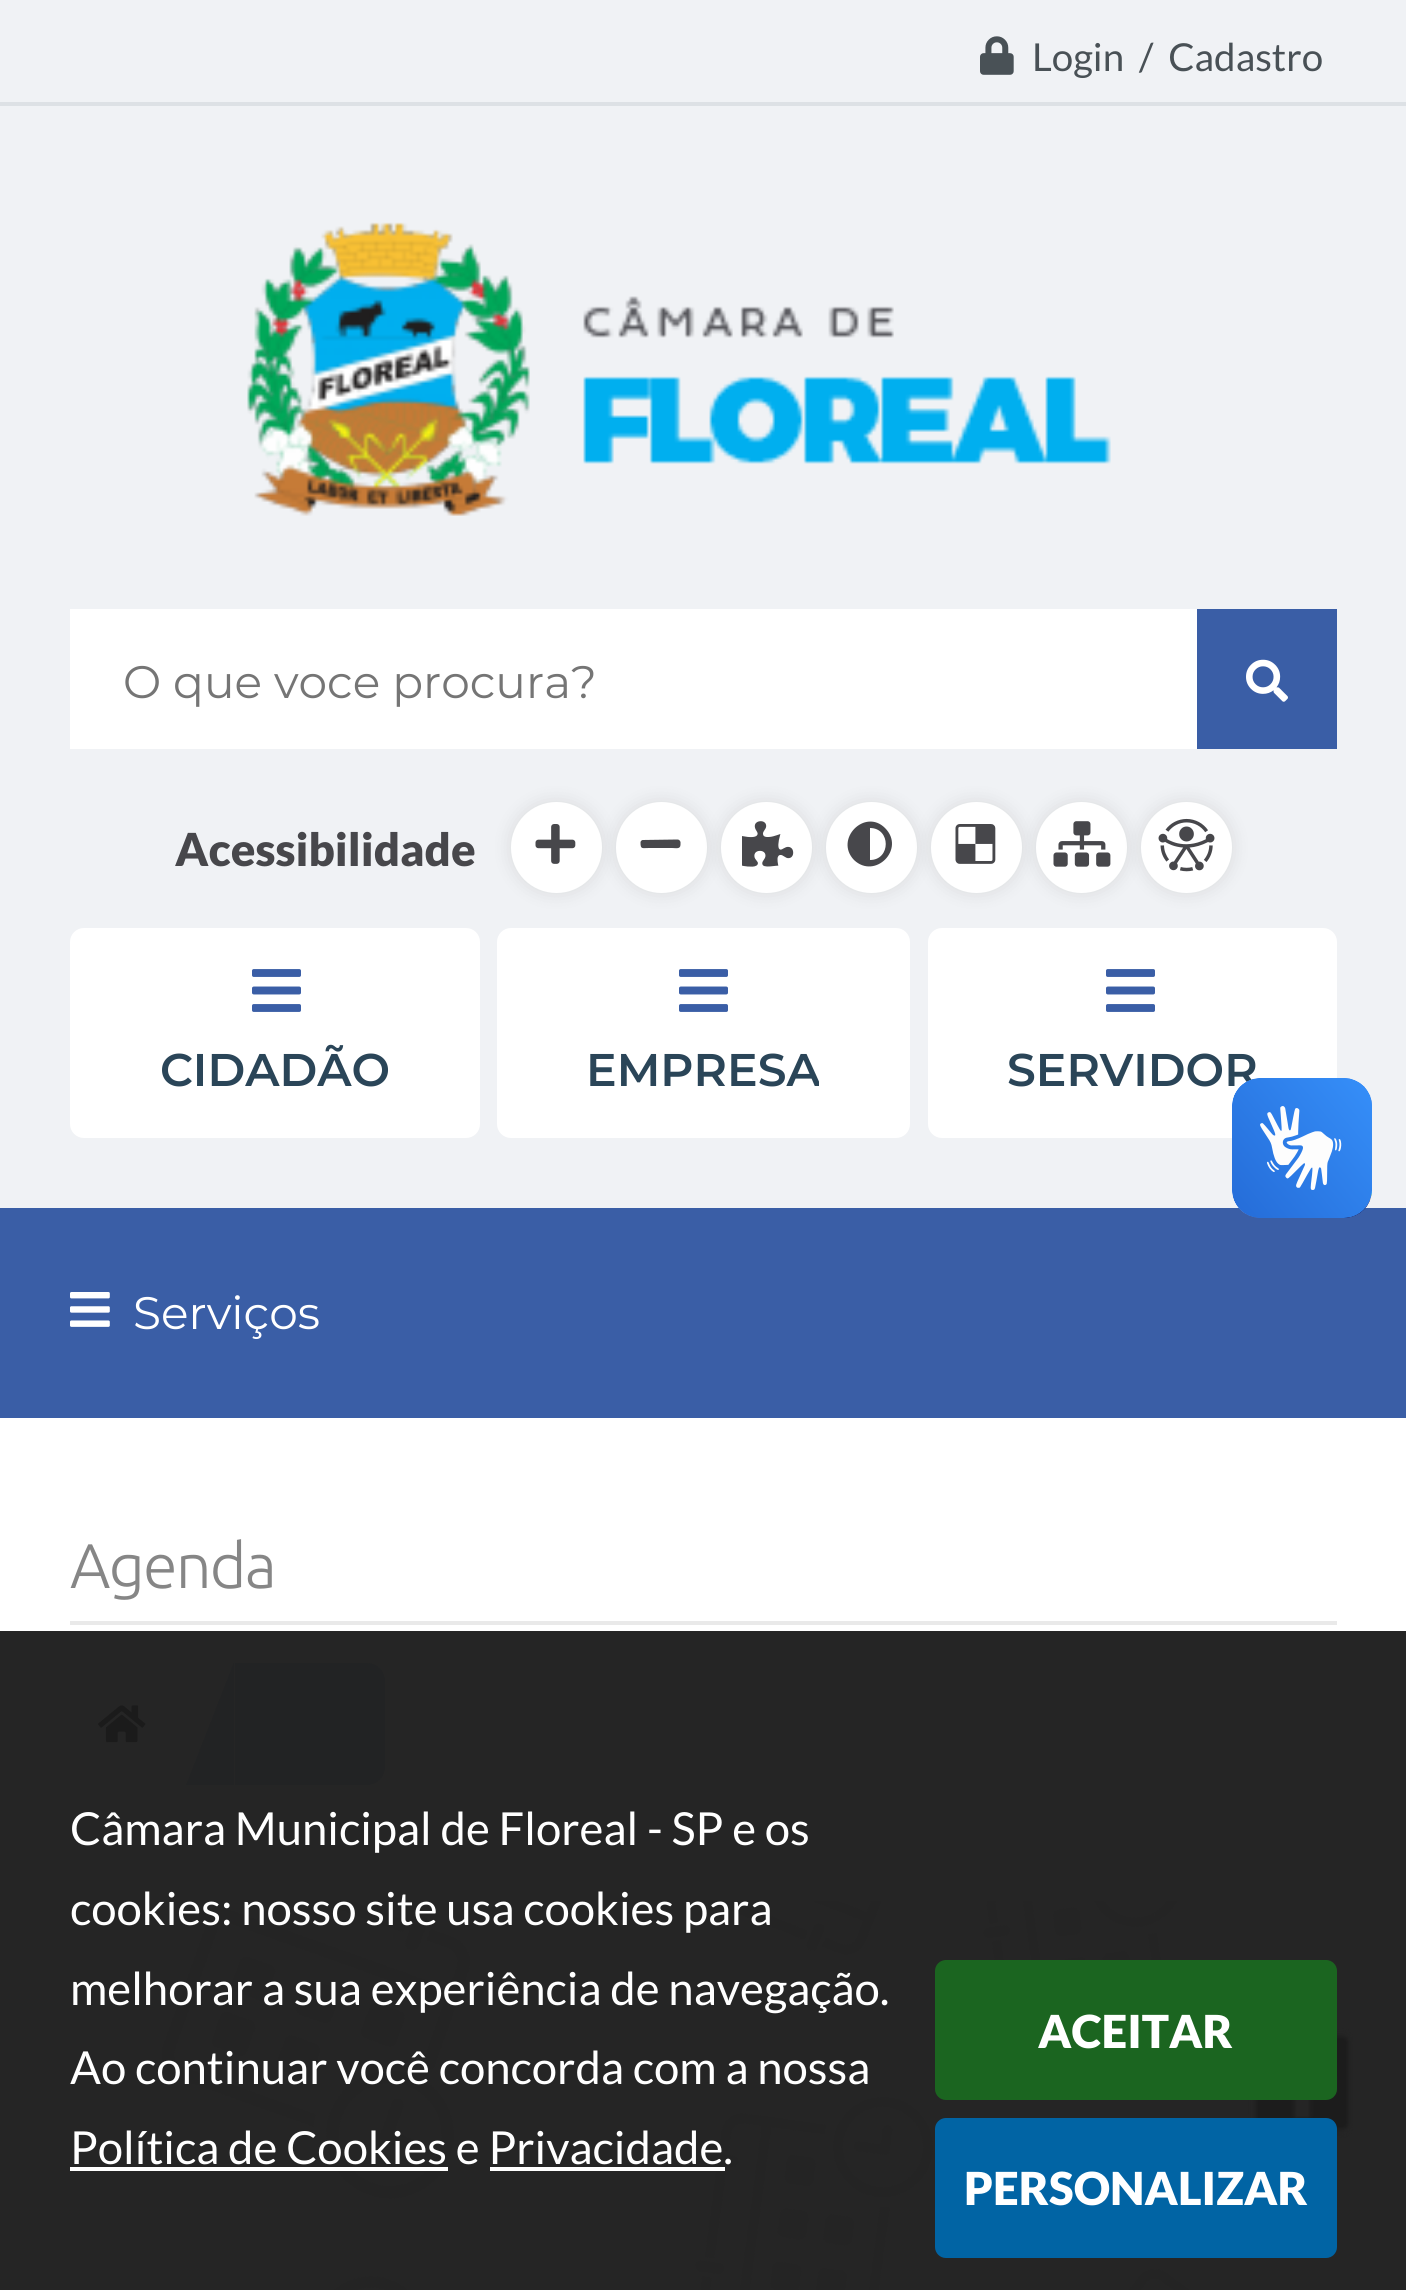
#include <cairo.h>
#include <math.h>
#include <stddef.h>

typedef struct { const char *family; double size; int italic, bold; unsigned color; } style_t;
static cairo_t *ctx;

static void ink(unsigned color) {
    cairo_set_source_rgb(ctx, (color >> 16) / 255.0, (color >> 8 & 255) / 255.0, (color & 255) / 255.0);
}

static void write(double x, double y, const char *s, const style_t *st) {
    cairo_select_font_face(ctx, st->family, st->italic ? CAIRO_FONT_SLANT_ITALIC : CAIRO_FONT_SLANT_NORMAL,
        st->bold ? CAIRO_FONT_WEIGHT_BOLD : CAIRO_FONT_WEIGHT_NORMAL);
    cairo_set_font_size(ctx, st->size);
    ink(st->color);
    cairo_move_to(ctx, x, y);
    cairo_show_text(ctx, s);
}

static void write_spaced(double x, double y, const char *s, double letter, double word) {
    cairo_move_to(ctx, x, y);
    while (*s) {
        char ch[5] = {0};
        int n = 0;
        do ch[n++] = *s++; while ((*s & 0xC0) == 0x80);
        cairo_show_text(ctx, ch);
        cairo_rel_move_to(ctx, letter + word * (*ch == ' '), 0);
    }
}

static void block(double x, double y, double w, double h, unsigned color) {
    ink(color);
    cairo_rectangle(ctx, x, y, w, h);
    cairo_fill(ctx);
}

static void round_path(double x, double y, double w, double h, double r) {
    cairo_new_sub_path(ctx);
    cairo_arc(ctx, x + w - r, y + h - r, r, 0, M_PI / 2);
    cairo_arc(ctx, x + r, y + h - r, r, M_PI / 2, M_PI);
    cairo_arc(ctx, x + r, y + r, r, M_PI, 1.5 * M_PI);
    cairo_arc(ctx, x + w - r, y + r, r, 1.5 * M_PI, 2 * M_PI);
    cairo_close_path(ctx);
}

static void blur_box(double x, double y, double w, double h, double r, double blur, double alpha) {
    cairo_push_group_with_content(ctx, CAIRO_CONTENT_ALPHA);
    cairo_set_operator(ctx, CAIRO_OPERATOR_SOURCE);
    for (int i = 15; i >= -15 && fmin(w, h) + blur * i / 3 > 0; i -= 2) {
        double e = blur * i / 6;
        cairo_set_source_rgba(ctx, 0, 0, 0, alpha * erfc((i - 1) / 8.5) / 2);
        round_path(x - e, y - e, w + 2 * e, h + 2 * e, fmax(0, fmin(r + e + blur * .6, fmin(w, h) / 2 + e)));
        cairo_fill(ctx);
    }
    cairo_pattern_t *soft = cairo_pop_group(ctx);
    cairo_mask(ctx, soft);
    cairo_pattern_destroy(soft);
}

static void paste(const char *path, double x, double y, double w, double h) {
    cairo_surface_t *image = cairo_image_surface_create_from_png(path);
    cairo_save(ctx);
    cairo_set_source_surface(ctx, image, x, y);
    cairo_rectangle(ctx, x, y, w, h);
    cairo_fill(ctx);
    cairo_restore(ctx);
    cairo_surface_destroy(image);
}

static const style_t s1 = {"Lato", 38.5, 0, 0, 0x495156};
static const style_t s2 = {"Montserrat", 45.5, 0, 0, 0x757575};
static const style_t s3 = {"Lato Black", 45.5, 0, 0, 0x47474b};
static const style_t s4 = {"Montserrat SemiBold", 45.75, 0, 0, 0x2a4558};
static const style_t s5 = {"Montserrat", 45.5, 0, 0, 0xffffff};
static const style_t s6 = {"Lato", 45.5, 0, 0, 0xffffff};
static const style_t s7 = {"Lato Black", 45.5, 0, 0, 0xffffff};

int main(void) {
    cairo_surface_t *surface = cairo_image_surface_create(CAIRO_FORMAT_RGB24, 1406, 2290);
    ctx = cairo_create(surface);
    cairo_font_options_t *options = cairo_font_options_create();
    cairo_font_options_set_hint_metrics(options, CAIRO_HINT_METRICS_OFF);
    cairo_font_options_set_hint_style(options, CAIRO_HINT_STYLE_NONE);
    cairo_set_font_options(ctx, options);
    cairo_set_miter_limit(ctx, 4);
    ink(0xffffff);
    cairo_paint(ctx);
    block(0, 1631, 1406, 659, 0x252525);
    block(0, 0, 1406, 102, 0xf0f2f5);
    block(0, 102, 1406, 4, 0xdde1e5);
    paste("pic1.png", 980, 36, 34, 39);
    write(1032, 71, "Login  /  Cadastro", &s1);
    block(0, 106, 1406, 1102, 0xf0f2f5);
    paste("pic2.png", 247, 222, 864, 294);
    block(70, 609, 1127, 140, 0xffffff);
    write(123, 698, "O que voce procura?", &s2);
    block(1197, 609, 140, 140, 0x3a5ea6);
    paste("pic3.png", 1246, 659, 42, 43);
    write(175, 866, "Acessibilidade", &s3);
    ink(0x000000);
    blur_box(511, 802, 91, 91, 45.5, 9, 0.1);
    ink(0xffffff);
    cairo_arc(ctx, 556.5, 847.5, 45.5, 0, 2 * M_PI);
    cairo_fill(ctx);
    paste("pic4.png", 535, 824, 41, 40);
    ink(0x000000);
    blur_box(616, 802, 91, 91, 45.5, 9, 0.1);
    ink(0xffffff);
    cairo_arc(ctx, 661.5, 847.5, 45.5, 0, 2 * M_PI);
    cairo_fill(ctx);
    ink(0x47474b);
    cairo_new_path(ctx);
    cairo_move_to(ctx, 677.5, 839.5);
    cairo_curve_to(ctx, 679, 839.5, 680, 840.5, 680.5, 842);
    cairo_line_to(ctx, 680.5, 844.5);
    cairo_curve_to(ctx, 680.5, 849.5, 676, 848, 672, 848);
    cairo_line_to(ctx, 649, 848);
    cairo_curve_to(ctx, 642, 848, 640.5, 849.5, 640.5, 842.5);
    cairo_curve_to(ctx, 640.5, 841.5, 641, 840.5, 642.5, 840);
    cairo_close_path(ctx);
    cairo_fill(ctx);
    ink(0x000000);
    blur_box(721, 802, 91, 91, 45.5, 9, 0.1);
    ink(0xffffff);
    cairo_arc(ctx, 766.5, 847.5, 45.5, 0, 2 * M_PI);
    cairo_fill(ctx);
    paste("pic5.png", 742, 821, 52, 46);
    ink(0x000000);
    blur_box(826, 802, 91, 91, 45.5, 9, 0.1);
    ink(0xffffff);
    cairo_arc(ctx, 871.5, 847.5, 45.5, 0, 2 * M_PI);
    cairo_fill(ctx);
    ink(0x47474b);
    cairo_new_path(ctx);
    cairo_move_to(ctx, 854, 860);
    cairo_curve_to(ctx, 834, 839, 865, 808, 885, 828);
    cairo_curve_to(ctx, 906, 849, 875, 880, 854, 860);
    cairo_close_path(ctx);
    cairo_move_to(ctx, 870, 860);
    cairo_curve_to(ctx, 891, 860, 891, 828, 870, 828);
    cairo_close_path(ctx);
    cairo_fill(ctx);
    ink(0x000000);
    blur_box(931, 802, 91, 91, 45.5, 9, 0.1);
    ink(0xffffff);
    cairo_arc(ctx, 976.5, 847.5, 45.5, 0, 2 * M_PI);
    cairo_fill(ctx);
    paste("pic6.png", 955, 824, 41, 40);
    ink(0x000000);
    blur_box(1036, 802, 91, 91, 45.5, 9, 0.1);
    ink(0xffffff);
    cairo_arc(ctx, 1081.5, 847.5, 45.5, 0, 2 * M_PI);
    cairo_fill(ctx);
    paste("pic7.png", 1053, 821, 58, 46);
    ink(0x000000);
    blur_box(1141, 802, 91, 91, 45.5, 9, 0.1);
    ink(0xffffff);
    cairo_arc(ctx, 1186.5, 847.5, 45.5, 0, 2 * M_PI);
    cairo_fill(ctx);
    paste("pic8.png", 1158, 818, 57, 54);
    round_path(70, 928, 410, 210, 14);
    cairo_fill(ctx);
    paste("pic9.png", 252, 969, 49, 43);
    write(160, 1086, "CIDADÃO", &s4);
    ink(0xffffff);
    round_path(497, 928, 413, 210, 14);
    cairo_fill(ctx);
    paste("pic9.png", 679, 969, 49, 43);
    cairo_save(ctx);
    cairo_rectangle(ctx, 588, 1036, 231, 67);
    cairo_clip(ctx);
    write(586, 1086, "EMPRESA", &s4);
    cairo_restore(ctx);
    round_path(928, 928, 409, 210, 14);
    cairo_fill(ctx);
    paste("pic9.png", 1106, 969, 49, 43);
    write(1007, 1086, "SERVIDOR", &s4);
    block(0, 1208, 1406, 210, 0x3a5ea6);
    paste("pic10.png", 70, 1292, 40, 35);
    write(133, 1329, "Serviços", &s5);
    paste("pic11.png", 1232, 1078, 140, 140);
    paste("pic12.png", 1232, 1078, 140, 140);
    write(70, 1845, "Câmara Municipal de Floreal - SP e os", &s6);
    paste("pic14.png", 162, 1901, 1028, 389);
    write(70, 1925, "cookies: nosso site usa cookies para", &s6);
    write(70, 2005, "melhorar a sua experiência de navegação.", &s6);
    write(70, 2084, "Ao continuar você concorda com a nossa", &s6);
    write(70, 2164, "Política de Cookies e Privacidade.", &s6);
    block(70, 2167, 378, 4, 0xffffff);
    block(490, 2167, 235, 4, 0xffffff);
    paste("pic15.png", 1248, 2028, 105, 110);
    ink(0x1b6520);
    round_path(935, 1960, 402, 140, 11);
    cairo_fill(ctx);
    write(1038, 2048, "ACEITAR", &s7);
    ink(0x0164a4);
    round_path(935, 2118, 402, 140, 11);
    cairo_fill(ctx);
    write(964, 2205, "PERSONALIZAR", &s7);
    cairo_select_font_face(ctx, "Ubuntu Light", CAIRO_FONT_SLANT_NORMAL, CAIRO_FONT_WEIGHT_NORMAL);
    cairo_set_font_size(ctx, 63);
    ink(0x868686);
    write_spaced(70, 1588, "Agenda", -1.75, 0);
    block(70, 1621, 1267, 4, 0xe9e9e9);
    paste("pic13.png", 98, 1705, 48, 38);
    ink(0x222324);
    cairo_new_path(ctx);
    cairo_move_to(ctx, 235, 1663);
    cairo_line_to(ctx, 367, 1663);
    cairo_curve_to(ctx, 377, 1663, 385, 1671, 385, 1681);
    cairo_line_to(ctx, 385, 1767);
    cairo_curve_to(ctx, 385, 1777, 377, 1785, 367, 1785);
    cairo_line_to(ctx, 235, 1785);
    cairo_close_path(ctx);
    cairo_fill(ctx);
    cairo_new_path(ctx);
    cairo_move_to(ctx, 234, 1785);
    cairo_line_to(ctx, 186, 1785);
    cairo_line_to(ctx, 234, 1662);
    cairo_close_path(ctx);
    cairo_fill(ctx);
    cairo_surface_write_to_png(surface, "screenshot.png");
    cairo_font_options_destroy(options);
    cairo_destroy(ctx);
    cairo_surface_destroy(surface);
    return 0;
}
